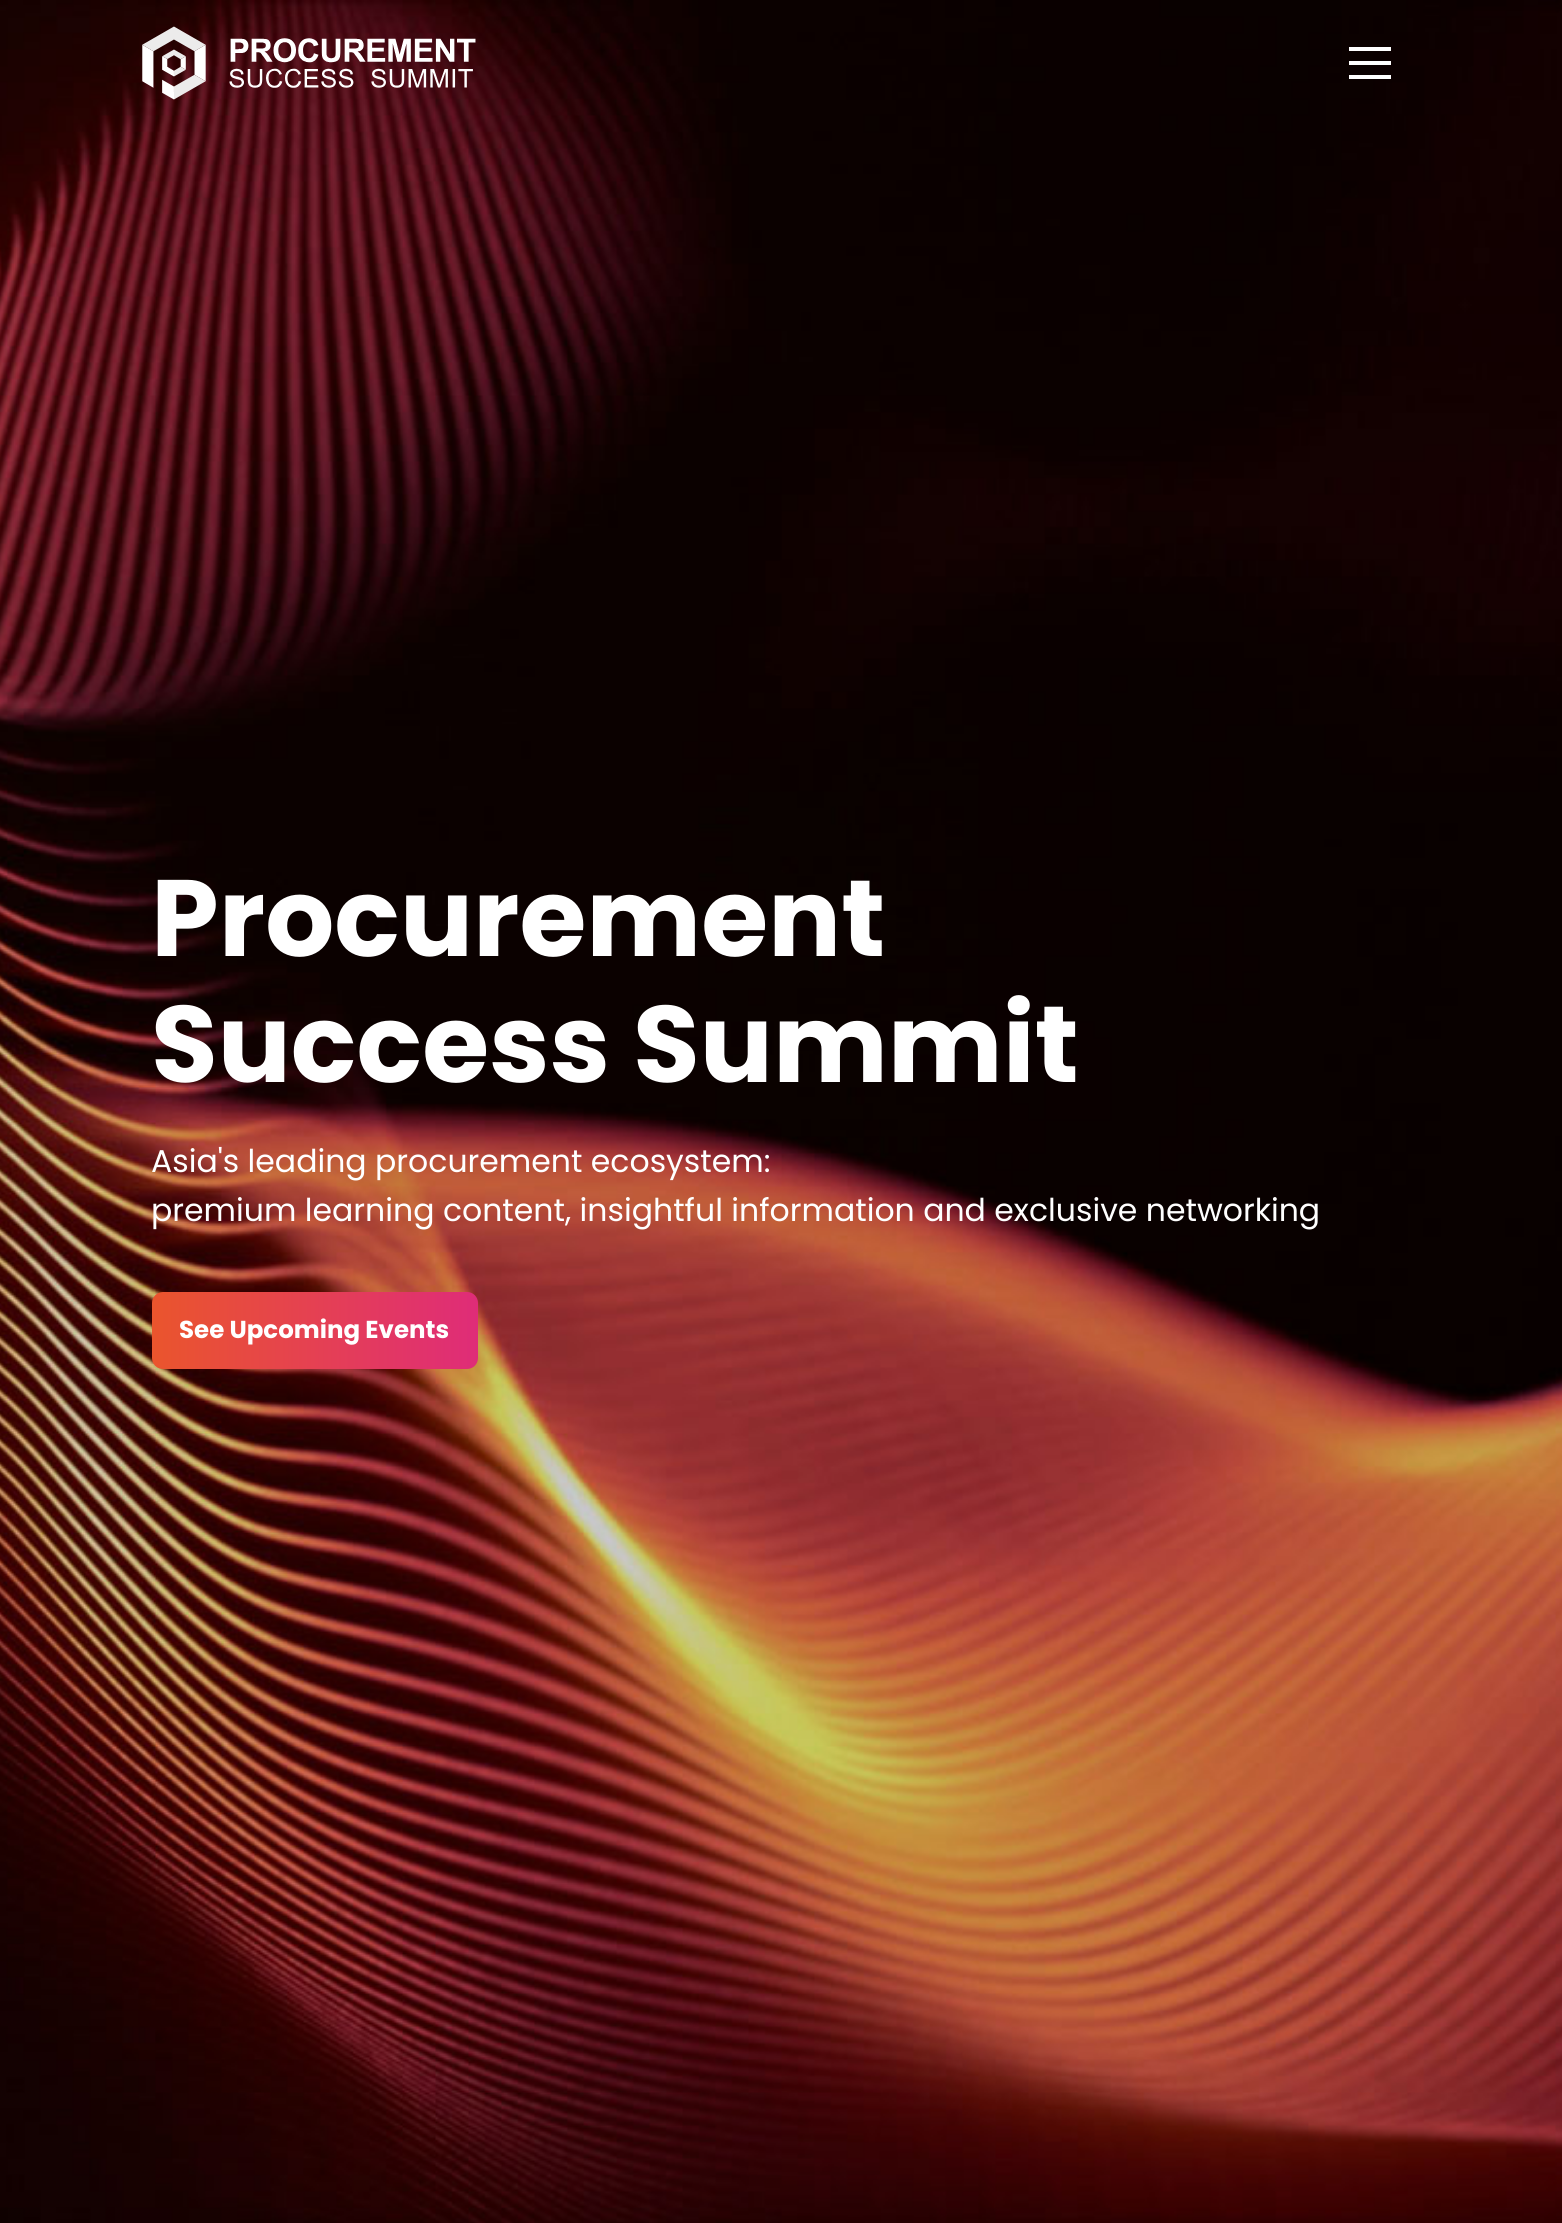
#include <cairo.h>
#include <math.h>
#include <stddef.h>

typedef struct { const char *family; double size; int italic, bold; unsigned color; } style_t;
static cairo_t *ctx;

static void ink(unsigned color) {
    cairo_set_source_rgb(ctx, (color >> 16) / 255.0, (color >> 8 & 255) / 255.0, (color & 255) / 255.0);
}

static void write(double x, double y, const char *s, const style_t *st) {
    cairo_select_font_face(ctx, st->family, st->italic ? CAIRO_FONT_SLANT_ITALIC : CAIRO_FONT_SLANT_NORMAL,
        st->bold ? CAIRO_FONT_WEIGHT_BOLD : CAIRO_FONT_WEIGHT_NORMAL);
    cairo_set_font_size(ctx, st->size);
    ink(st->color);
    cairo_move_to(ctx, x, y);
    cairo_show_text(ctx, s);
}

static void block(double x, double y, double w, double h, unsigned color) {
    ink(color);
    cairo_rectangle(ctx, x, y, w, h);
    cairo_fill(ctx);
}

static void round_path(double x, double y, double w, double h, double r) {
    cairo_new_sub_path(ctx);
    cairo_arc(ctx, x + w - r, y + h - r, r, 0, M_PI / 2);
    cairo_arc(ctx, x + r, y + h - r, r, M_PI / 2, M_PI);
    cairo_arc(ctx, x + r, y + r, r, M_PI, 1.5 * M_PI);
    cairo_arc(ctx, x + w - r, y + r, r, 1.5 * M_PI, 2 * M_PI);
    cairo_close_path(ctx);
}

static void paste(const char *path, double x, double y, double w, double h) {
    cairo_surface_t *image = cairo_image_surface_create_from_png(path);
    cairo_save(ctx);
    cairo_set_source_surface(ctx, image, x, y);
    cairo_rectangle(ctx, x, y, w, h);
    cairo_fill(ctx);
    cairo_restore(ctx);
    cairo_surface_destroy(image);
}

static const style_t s1 = {"Poppins", 108.5, 0, 1, 0xffffff};
static const style_t s2 = {"Poppins", 31.5, 0, 0, 0xffffff};
static const style_t s3 = {"Poppins", 24.5, 0, 1, 0xffffff};

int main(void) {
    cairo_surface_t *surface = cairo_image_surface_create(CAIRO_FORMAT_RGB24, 1562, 2223);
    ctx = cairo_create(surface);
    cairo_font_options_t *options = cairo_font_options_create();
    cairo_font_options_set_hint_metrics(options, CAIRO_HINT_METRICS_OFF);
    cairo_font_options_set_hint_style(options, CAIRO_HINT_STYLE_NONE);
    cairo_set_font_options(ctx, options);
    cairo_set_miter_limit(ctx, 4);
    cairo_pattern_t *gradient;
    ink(0xffffff);
    cairo_paint(ctx);
    paste("pic2.png", 0, 0, 1562, 2223);
    paste("pic1.png", 142, 26, 334, 74);
    block(1349, 47, 42, 4, 0xffffff);
    block(1349, 61, 42, 4, 0xffffff);
    block(1349, 75, 42, 4, 0xffffff);
    write(151, 956, "Procurement", &s1);
    write(151, 1082, "Success Summit", &s1);
    write(151, 1172, "Asia's leading procurement ecosystem:", &s2);
    write(151, 1221, "premium learning content, insightful information and exclusive networking", &s2);
    gradient = cairo_pattern_create_linear(152, 1330, 478, 1330);
    cairo_pattern_add_color_stop_rgba(gradient, 0, 0.918, 0.333, 0.176, 1);
    cairo_pattern_add_color_stop_rgba(gradient, 1, 0.875, 0.173, 0.471, 1);
    cairo_set_source(ctx, gradient);
    cairo_pattern_destroy(gradient);
    round_path(152, 1292, 326, 77, 11);
    cairo_fill(ctx);
    write(179, 1338, "See Upcoming Events", &s3);
    cairo_surface_write_to_png(surface, "screenshot.png");
    cairo_font_options_destroy(options);
    cairo_destroy(ctx);
    cairo_surface_destroy(surface);
    return 0;
}
